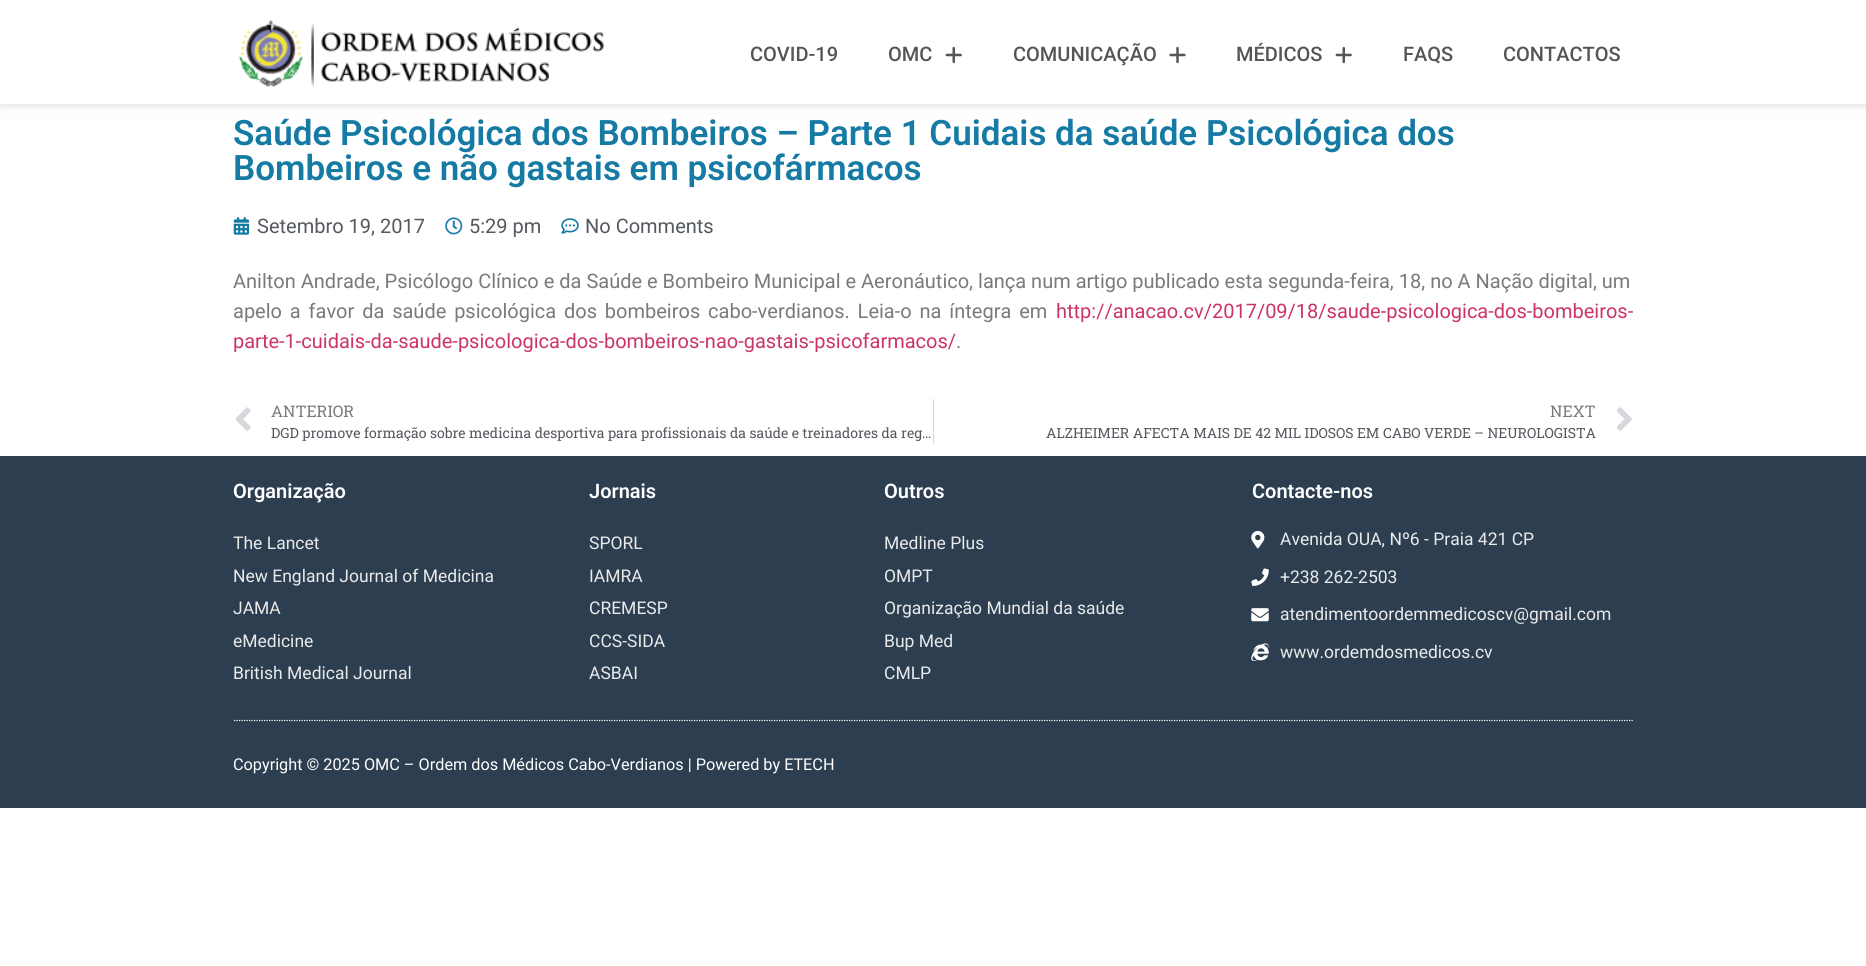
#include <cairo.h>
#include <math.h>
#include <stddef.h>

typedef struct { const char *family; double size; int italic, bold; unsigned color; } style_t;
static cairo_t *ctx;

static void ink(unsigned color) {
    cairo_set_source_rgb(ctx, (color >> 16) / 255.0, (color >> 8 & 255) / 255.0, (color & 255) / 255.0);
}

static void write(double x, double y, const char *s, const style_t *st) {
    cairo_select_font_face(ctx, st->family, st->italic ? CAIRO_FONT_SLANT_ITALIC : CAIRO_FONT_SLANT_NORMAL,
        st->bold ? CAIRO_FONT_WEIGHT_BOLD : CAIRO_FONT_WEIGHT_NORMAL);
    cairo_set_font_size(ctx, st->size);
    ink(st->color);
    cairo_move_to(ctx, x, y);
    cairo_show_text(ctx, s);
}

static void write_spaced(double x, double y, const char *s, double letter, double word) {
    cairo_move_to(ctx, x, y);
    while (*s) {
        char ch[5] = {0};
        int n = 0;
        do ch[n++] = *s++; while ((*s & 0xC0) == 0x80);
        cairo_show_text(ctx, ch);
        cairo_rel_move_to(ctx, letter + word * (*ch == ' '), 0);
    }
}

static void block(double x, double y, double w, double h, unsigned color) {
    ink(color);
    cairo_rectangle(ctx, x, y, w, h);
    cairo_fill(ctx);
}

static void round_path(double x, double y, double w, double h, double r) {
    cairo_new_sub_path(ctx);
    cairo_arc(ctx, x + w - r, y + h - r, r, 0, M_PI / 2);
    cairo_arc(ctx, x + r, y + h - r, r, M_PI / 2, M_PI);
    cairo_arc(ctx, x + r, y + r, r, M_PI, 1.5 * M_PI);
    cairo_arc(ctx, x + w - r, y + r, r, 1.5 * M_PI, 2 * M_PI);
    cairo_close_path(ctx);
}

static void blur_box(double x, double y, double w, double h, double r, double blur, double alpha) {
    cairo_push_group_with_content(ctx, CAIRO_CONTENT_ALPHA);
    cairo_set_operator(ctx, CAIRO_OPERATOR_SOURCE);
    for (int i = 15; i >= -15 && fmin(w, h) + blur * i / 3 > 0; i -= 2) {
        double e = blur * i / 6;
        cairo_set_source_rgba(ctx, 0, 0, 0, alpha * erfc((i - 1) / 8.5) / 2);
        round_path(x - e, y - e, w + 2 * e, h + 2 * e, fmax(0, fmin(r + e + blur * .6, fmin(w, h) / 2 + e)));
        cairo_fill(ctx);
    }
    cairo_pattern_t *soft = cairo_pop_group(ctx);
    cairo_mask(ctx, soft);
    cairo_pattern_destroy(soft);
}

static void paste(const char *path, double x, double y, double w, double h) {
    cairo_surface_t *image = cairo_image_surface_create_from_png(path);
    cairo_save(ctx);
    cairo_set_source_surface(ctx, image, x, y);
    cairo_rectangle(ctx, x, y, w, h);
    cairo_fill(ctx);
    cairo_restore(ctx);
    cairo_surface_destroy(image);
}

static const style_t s1 = {"Roboto Medium", 20, 0, 0, 0x555555};
static const style_t s2 = {"Roboto SemiBold", 35, 0, 0, 0x157aa4};
static const style_t s3 = {"Roboto", 20, 0, 0, 0x54595f};
static const style_t s4 = {"Roboto", 20, 0, 0, 0x7a7a7a};
static const style_t s5 = {"Roboto", 20, 0, 0, 0xcc3366};
static const style_t s6 = {"Roboto Slab", 16, 0, 0, 0x7a7a7a};
static const style_t s7 = {"Roboto Slab", 14, 0, 0, 0x54595f};
static const style_t s8 = {"Roboto SemiBold", 20, 0, 0, 0xffffff};
static const style_t s9 = {"Roboto", 17.5, 0, 0, 0xeaeaea};
static const style_t s10 = {"Roboto", 16.25, 0, 0, 0xffffff};

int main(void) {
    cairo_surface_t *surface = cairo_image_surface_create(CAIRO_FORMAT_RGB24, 1866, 966);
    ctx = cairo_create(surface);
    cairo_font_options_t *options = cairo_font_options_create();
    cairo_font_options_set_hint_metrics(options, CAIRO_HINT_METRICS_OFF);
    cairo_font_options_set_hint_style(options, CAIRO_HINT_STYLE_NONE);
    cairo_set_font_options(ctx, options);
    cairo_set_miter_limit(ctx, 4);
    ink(0xffffff);
    cairo_paint(ctx);
    ink(0x000000);
    blur_box(0, 0, 1866, 104, 0, 5.5, 0.17);
    block(0, 0, 1866, 104, 0xffffff);
    paste("pic1.png", 238, 20, 366, 67);
    write(750, 61, "COVID-19", &s1);
    write(888, 61, "OMC", &s1);
    paste("pic2.png", 945, 46, 17, 18);
    write(1013, 61, "COMUNICAÇÃO", &s1);
    paste("pic3.png", 1169, 46, 17, 18);
    write(1236, 61, "MÉDICOS", &s1);
    paste("pic2.png", 1335, 46, 17, 18);
    write(1403, 61, "FAQS", &s1);
    write(1503, 61, "CONTACTOS", &s1);
    write(233, 145, "Saúde Psicológica dos Bombeiros – Parte 1 Cuidais da saúde Psicológica dos", &s2);
    write(233, 180, "Bombeiros e não gastais em psicofármacos", &s2);
    paste("pic4.png", 233, 217, 17, 18);
    write(257, 233, "Setembro 19, 2017", &s3);
    paste("pic5.png", 445, 217, 18, 18);
    write(469, 233, "5:29 pm", &s3);
    paste("pic6.png", 561, 218, 18, 16);
    write(585, 233, "No Comments", &s3);
    write(233, 288, "Anilton Andrade, Psicólogo Clínico e da Saúde e Bombeiro Municipal e Aeronáutico, lança num artigo publicado esta segunda-feira, 18, no A Nação digital, um", &s4);
    write_spaced(233, 318, "apelo a favor da saúde psicológica dos bombeiros cabo-verdianos. Leia-o na íntegra em", 0, 2.9);
    write(1056, 318, "http://anacao.cv/2017/09/18/saude-psicologica-dos-bombeiros-", &s5);
    write(233, 348, "parte-1-cuidais-da-saude-psicologica-dos-bombeiros-nao-gastais-psicofarmacos/", &s5);
    write(956, 348, ".", &s4);
    paste("pic7.png", 235, 407, 16, 24);
    write(271, 417, "ANTERIOR", &s6);
    write(271, 438, "DGD promove formação sobre medicina desportiva para profissionais da saúde e treinadores da reg…", &s7);
    block(933, 399, 1, 45, 0xd5d8dc);
    write(1550, 417, "NEXT", &s6);
    write(1046, 438, "ALZHEIMER AFECTA MAIS DE 42 MIL IDOSOS EM CABO VERDE – NEUROLOGISTA", &s7);
    paste("pic8.png", 1616, 407, 16, 24);
    block(0, 456, 1866, 352, 0x2c3e50);
    write(233, 498, "Organização", &s8);
    write(233, 549, "The Lancet", &s9);
    write(233, 582, "New England Journal of Medicina", &s9);
    write(233, 614, "JAMA", &s9);
    write(233, 647, "eMedicine", &s9);
    write(233, 679, "British Medical Journal", &s9);
    write(589, 498, "Jornais", &s8);
    write(589, 549, "SPORL", &s9);
    write(589, 582, "IAMRA", &s9);
    write(589, 614, "CREMESP", &s9);
    write(589, 647, "CCS-SIDA", &s9);
    write(589, 679, "ASBAI", &s9);
    write(884, 498, "Outros", &s8);
    write(884, 549, "Medline Plus", &s9);
    write(884, 582, "OMPT", &s9);
    write(884, 614, "Organização Mundial da saúde", &s9);
    write(884, 647, "Bup Med", &s9);
    write(884, 679, "CMLP", &s9);
    write(1252, 498, "Contacte-nos", &s8);
    paste("pic9.png", 1251, 530, 14, 19);
    write(1280, 545, "Avenida OUA, Nº6 - Praia 421 CP", &s9);
    paste("pic10.png", 1251, 568, 18, 18);
    write(1280, 583, "+238 262-2503", &s9);
    paste("pic11.png", 1251, 608, 18, 14);
    write(1280, 620, "atendimentoordemmedicoscv@gmail.com", &s9);
    paste("pic12.png", 1251, 643, 18, 18);
    write(1280, 658, "www.ordemdosmedicos.cv", &s9);
    cairo_new_path(ctx);
    cairo_move_to(ctx, 234, 720.5);
    cairo_line_to(ctx, 1634, 720.5);
    ink(0xffffff);
    cairo_set_line_width(ctx, 1.2);
    cairo_set_dash(ctx, (double[]){1.25, 1.25}, 2, 0);
    cairo_stroke(ctx);
    write(233, 770, "Copyright © 2025 OMC – Ordem dos Médicos Cabo-Verdianos | Powered by ETECH", &s10);
    cairo_surface_write_to_png(surface, "screenshot.png");
    cairo_font_options_destroy(options);
    cairo_destroy(ctx);
    cairo_surface_destroy(surface);
    return 0;
}
